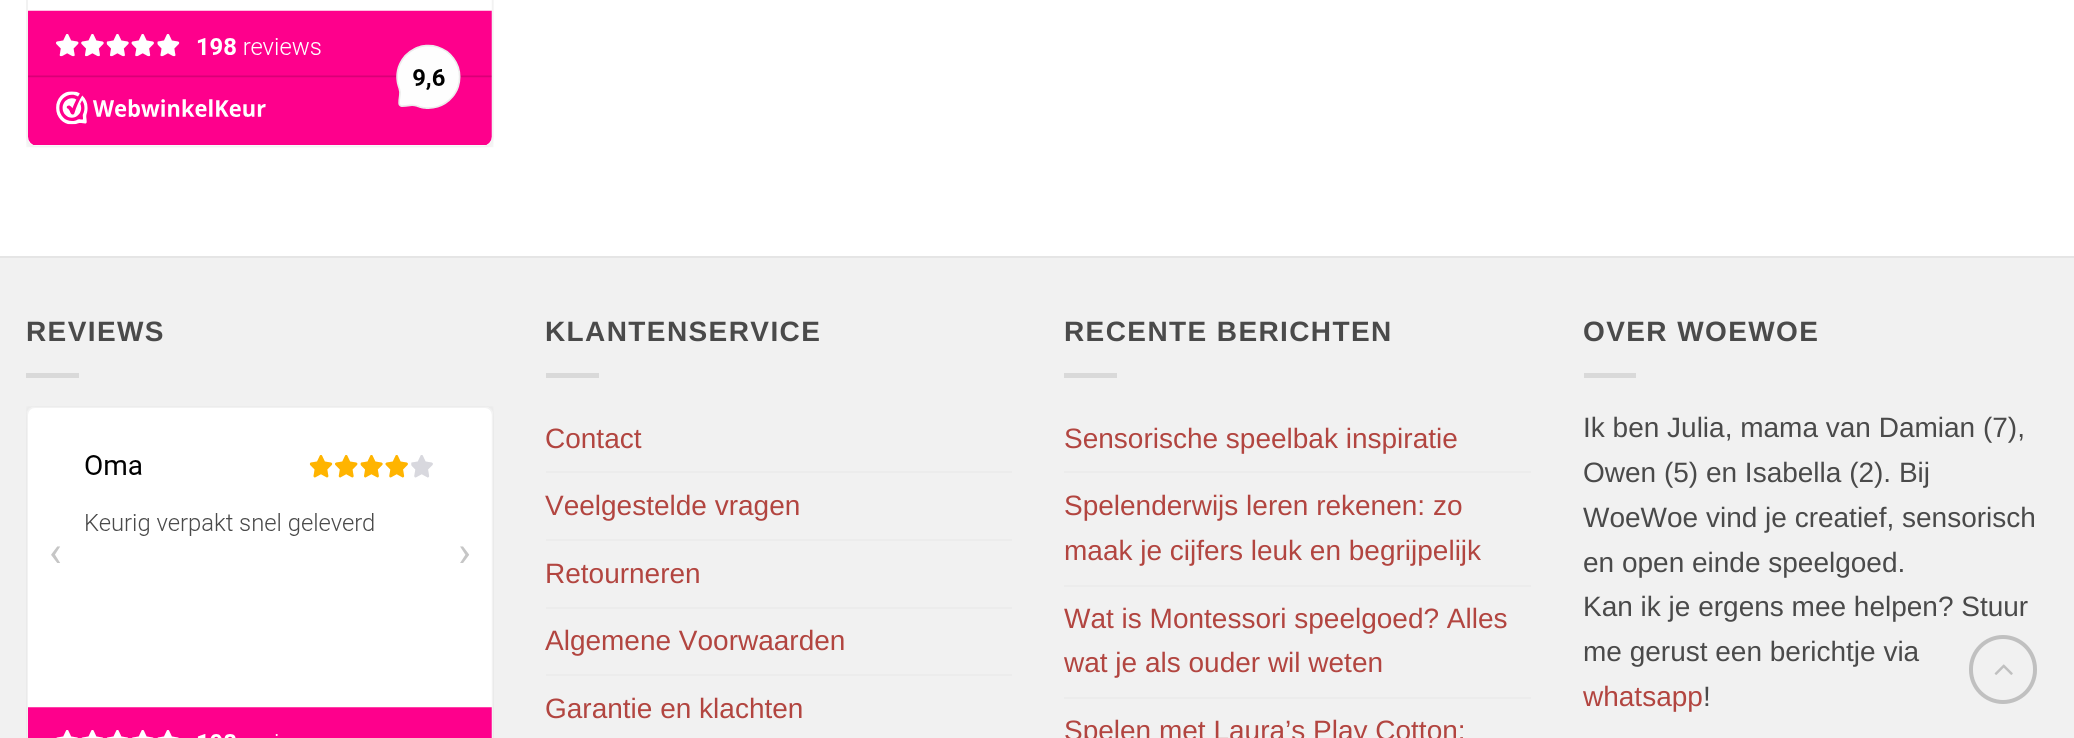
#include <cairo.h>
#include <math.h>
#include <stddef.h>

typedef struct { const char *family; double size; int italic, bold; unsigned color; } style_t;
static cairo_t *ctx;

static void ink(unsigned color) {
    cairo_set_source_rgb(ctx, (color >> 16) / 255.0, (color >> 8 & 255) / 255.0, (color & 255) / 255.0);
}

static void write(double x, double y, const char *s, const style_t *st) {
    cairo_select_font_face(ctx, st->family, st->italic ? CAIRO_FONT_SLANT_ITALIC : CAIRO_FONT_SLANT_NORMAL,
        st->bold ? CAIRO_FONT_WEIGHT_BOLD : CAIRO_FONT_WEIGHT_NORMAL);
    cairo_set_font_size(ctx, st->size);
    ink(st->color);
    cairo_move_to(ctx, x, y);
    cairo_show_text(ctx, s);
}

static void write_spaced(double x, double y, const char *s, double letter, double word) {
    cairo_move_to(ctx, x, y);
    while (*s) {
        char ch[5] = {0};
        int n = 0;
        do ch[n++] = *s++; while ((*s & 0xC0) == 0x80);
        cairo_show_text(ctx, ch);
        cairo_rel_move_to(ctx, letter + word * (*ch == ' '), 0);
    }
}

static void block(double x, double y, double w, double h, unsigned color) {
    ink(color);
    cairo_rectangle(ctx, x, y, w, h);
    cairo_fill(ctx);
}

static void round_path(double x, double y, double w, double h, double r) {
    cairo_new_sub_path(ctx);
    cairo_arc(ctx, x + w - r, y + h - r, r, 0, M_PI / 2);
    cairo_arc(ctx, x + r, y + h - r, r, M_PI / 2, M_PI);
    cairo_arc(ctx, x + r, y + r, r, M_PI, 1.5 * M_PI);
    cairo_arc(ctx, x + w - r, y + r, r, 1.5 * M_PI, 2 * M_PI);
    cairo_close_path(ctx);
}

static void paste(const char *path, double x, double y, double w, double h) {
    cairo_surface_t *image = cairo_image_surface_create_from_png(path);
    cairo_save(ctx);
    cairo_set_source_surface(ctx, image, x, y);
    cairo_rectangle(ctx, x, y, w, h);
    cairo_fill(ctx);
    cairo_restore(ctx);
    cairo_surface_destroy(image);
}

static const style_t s1 = {"Liberation Sans", 28, 0, 0, 0xb24540};
static const style_t s2 = {"Liberation Sans", 28, 0, 0, 0x4a4a4a};

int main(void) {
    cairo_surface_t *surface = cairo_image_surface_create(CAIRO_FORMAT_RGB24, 2074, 738);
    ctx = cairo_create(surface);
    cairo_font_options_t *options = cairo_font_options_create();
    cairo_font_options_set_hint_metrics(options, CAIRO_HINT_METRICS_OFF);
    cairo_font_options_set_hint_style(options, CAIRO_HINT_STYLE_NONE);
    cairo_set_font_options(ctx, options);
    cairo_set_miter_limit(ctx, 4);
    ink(0xffffff);
    cairo_paint(ctx);
    paste("pic1.png", 26, 0, 468, 148);
    block(0, 258, 2074, 480, 0xf1f1f1);
    block(0, 256, 2074, 2, 0xe5e5e5);
    cairo_select_font_face(ctx, "Liberation Sans", CAIRO_FONT_SLANT_NORMAL, CAIRO_FONT_WEIGHT_BOLD);
    cairo_set_font_size(ctx, 28);
    ink(0x4a4a4a);
    write_spaced(26, 341, "REVIEWS", 1.4, 0);
    block(26, 373, 53, 5, 0xd9d9d9);
    paste("pic2.png", 26, 406, 468, 332);
    ink(0x4a4a4a);
    write_spaced(545, 341, "KLANTENSERVICE", 1.4, 0);
    block(546, 373, 53, 5, 0xd9d9d9);
    write(545, 448, "Contact", &s1);
    block(546, 471, 466, 2, 0xececec);
    write(545, 515, "Veelgestelde vragen", &s1);
    block(546, 539, 466, 2, 0xececec);
    write(545, 583, "Retourneren", &s1);
    block(546, 607, 466, 2, 0xececec);
    write(545, 650, "Algemene Voorwaarden", &s1);
    block(546, 674, 466, 2, 0xececec);
    write(545, 718, "Garantie en klachten", &s1);
    cairo_select_font_face(ctx, "Liberation Sans", CAIRO_FONT_SLANT_NORMAL, CAIRO_FONT_WEIGHT_BOLD);
    ink(0x4a4a4a);
    write_spaced(1064, 341, "RECENTE BERICHTEN", 1.4, 0);
    block(1064, 373, 53, 5, 0xd9d9d9);
    write(1064, 448, "Sensorische speelbak inspiratie", &s1);
    block(1064, 471, 467, 2, 0xececec);
    write(1064, 515, "Spelenderwijs leren rekenen: zo", &s1);
    write(1064, 560, "maak je cijfers leuk en begrijpelijk", &s1);
    block(1064, 585, 467, 2, 0xececec);
    write(1064, 628, "Wat is Montessori speelgoed? Alles", &s1);
    write(1064, 672, "wat je als ouder wil weten", &s1);
    block(1064, 697, 467, 2, 0xececec);
    write(1064, 740, "Spelen met Laura’s Play Cotton:", &s1);
    cairo_select_font_face(ctx, "Liberation Sans", CAIRO_FONT_SLANT_NORMAL, CAIRO_FONT_WEIGHT_BOLD);
    ink(0x4a4a4a);
    write_spaced(1583, 341, "OVER WOEWOE", 1.4, 0);
    block(1584, 373, 52, 5, 0xd9d9d9);
    write(1583, 437, "Ik ben Julia, mama van Damian (7),", &s2);
    write(1583, 482, "Owen (5) en Isabella (2). Bij", &s2);
    write(1583, 527, "WoeWoe vind je creatief, sensorisch", &s2);
    write(1583, 572, "en open einde speelgoed.", &s2);
    write(1583, 616, "Kan ik je ergens mee helpen? Stuur", &s2);
    write(1583, 661, "me gerust een berichtje via", &s2);
    write(1583, 706, "whatsapp", &s1);
    write(1703, 706, "!", &s2);
    round_path(1971, 637, 64, 65, 32);
    ink(0xc0c0c0);
    cairo_set_line_width(ctx, 4);
    cairo_stroke(ctx);
    paste("pic3.png", 1994, 664, 19, 11);
    cairo_surface_write_to_png(surface, "screenshot.png");
    cairo_font_options_destroy(options);
    cairo_destroy(ctx);
    cairo_surface_destroy(surface);
    return 0;
}
